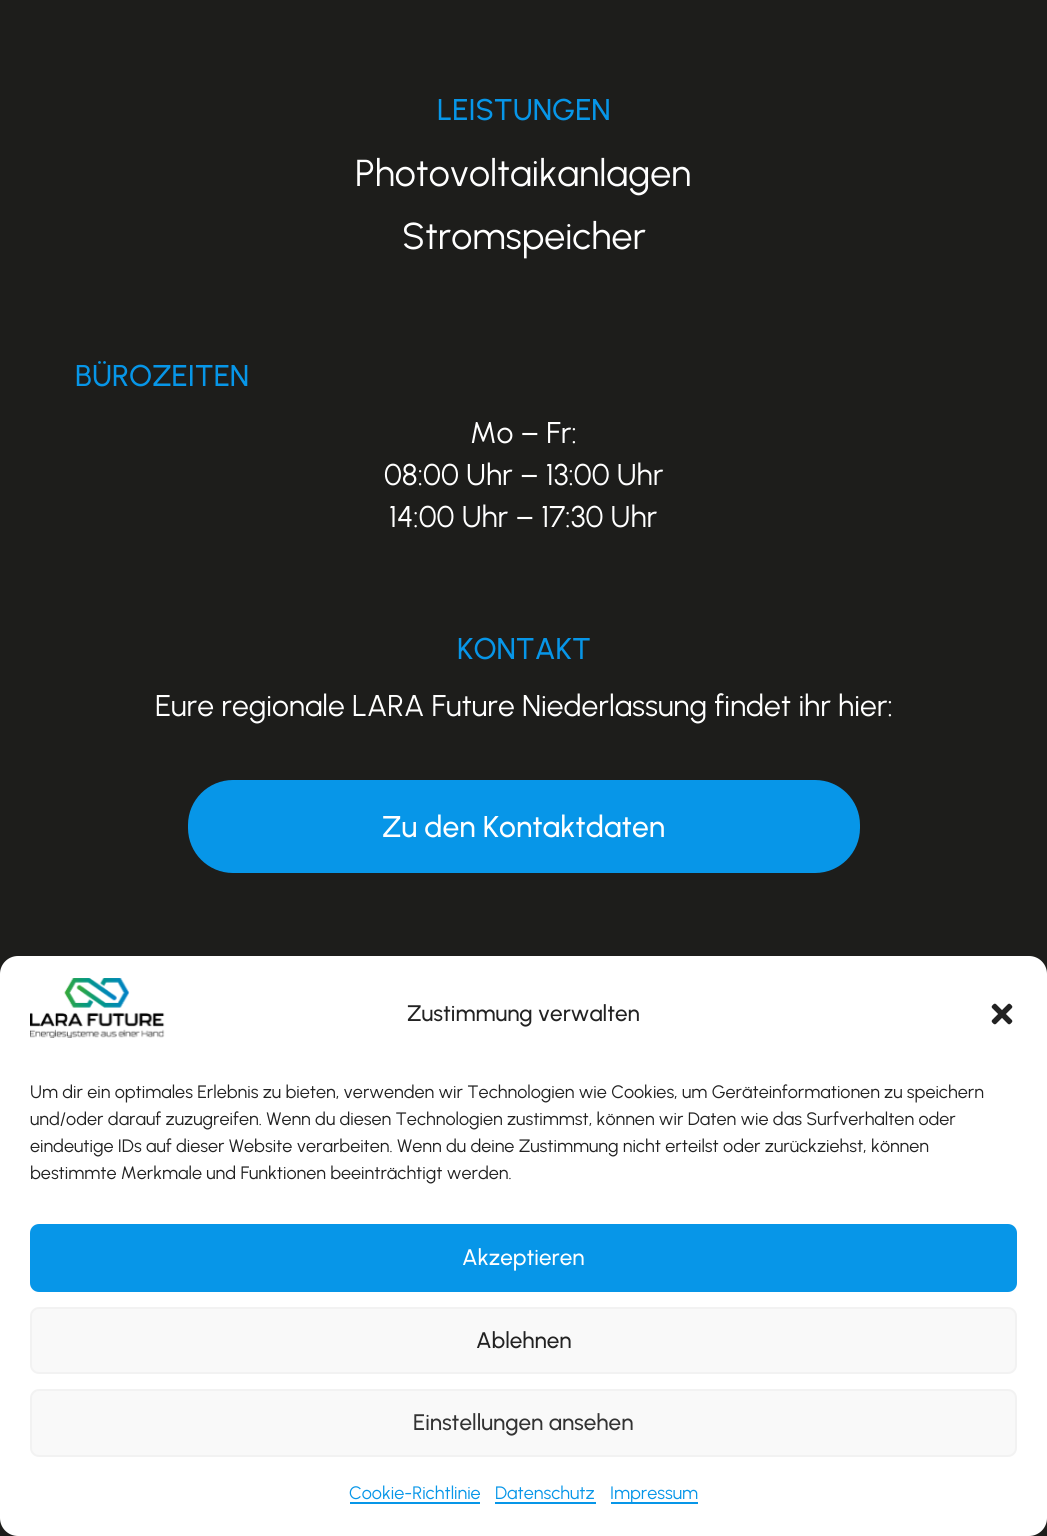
#include <cairo.h>
#include <math.h>
#include <stddef.h>

typedef struct { const char *family; double size; int italic, bold; unsigned color; } style_t;
static cairo_t *ctx;

static void ink(unsigned color) {
    cairo_set_source_rgb(ctx, (color >> 16) / 255.0, (color >> 8 & 255) / 255.0, (color & 255) / 255.0);
}

static void write(double x, double y, const char *s, const style_t *st) {
    cairo_select_font_face(ctx, st->family, st->italic ? CAIRO_FONT_SLANT_ITALIC : CAIRO_FONT_SLANT_NORMAL,
        st->bold ? CAIRO_FONT_WEIGHT_BOLD : CAIRO_FONT_WEIGHT_NORMAL);
    cairo_set_font_size(ctx, st->size);
    ink(st->color);
    cairo_move_to(ctx, x, y);
    cairo_show_text(ctx, s);
}

static void block(double x, double y, double w, double h, unsigned color) {
    ink(color);
    cairo_rectangle(ctx, x, y, w, h);
    cairo_fill(ctx);
}

static void round_path(double x, double y, double w, double h, double r) {
    cairo_new_sub_path(ctx);
    cairo_arc(ctx, x + w - r, y + h - r, r, 0, M_PI / 2);
    cairo_arc(ctx, x + r, y + h - r, r, M_PI / 2, M_PI);
    cairo_arc(ctx, x + r, y + r, r, M_PI, 1.5 * M_PI);
    cairo_arc(ctx, x + w - r, y + r, r, 1.5 * M_PI, 2 * M_PI);
    cairo_close_path(ctx);
}

static void paste(const char *path, double x, double y, double w, double h) {
    cairo_surface_t *image = cairo_image_surface_create_from_png(path);
    cairo_save(ctx);
    cairo_set_source_surface(ctx, image, x, y);
    cairo_rectangle(ctx, x, y, w, h);
    cairo_fill(ctx);
    cairo_restore(ctx);
    cairo_surface_destroy(image);
}

static const style_t s1 = {"Urbanist Medium", 30, 0, 0, 0x0796e8};
static const style_t s2 = {"Urbanist", 37.5, 0, 0, 0xffffff};
static const style_t s3 = {"Urbanist", 30, 0, 0, 0xffffff};
static const style_t s4 = {"Urbanist Medium", 30, 0, 0, 0xffffff};
static const style_t s5 = {"Urbanist Medium", 22.5, 0, 0, 0x222222};
static const style_t s6 = {"Urbanist", 18, 0, 0, 0x222222};
static const style_t s7 = {"Urbanist Medium", 22.5, 0, 0, 0xffffff};
static const style_t s8 = {"Urbanist Medium", 22.5, 0, 0, 0x333333};
static const style_t s9 = {"Urbanist", 18, 0, 0, 0x0796e8};

int main(void) {
    cairo_surface_t *surface = cairo_image_surface_create(CAIRO_FORMAT_RGB24, 1047, 1536);
    ctx = cairo_create(surface);
    cairo_font_options_t *options = cairo_font_options_create();
    cairo_font_options_set_hint_metrics(options, CAIRO_HINT_METRICS_OFF);
    cairo_font_options_set_hint_style(options, CAIRO_HINT_STYLE_NONE);
    cairo_set_font_options(ctx, options);
    cairo_set_miter_limit(ctx, 4);
    ink(0x1d1d1b);
    cairo_paint(ctx);
    write(437, 120, "LEISTUNGEN", &s1);
    write(355, 186, "Photovoltaikanlagen", &s2);
    write(402, 249, "Stromspeicher", &s2);
    write(75, 386, "BÜROZEITEN", &s1);
    write(470, 443, "Mo – Fr:", &s3);
    write(384, 485, "08:00 Uhr – 13:00 Uhr", &s3);
    write(389, 527, "14:00 Uhr – 17:30 Uhr", &s3);
    write(457, 659, "KONTAKT", &s1);
    write(155, 716, "Eure regionale LARA Future Niederlassung findet ihr hier:", &s3);
    ink(0x0796e8);
    round_path(188, 780, 672, 93, 45);
    cairo_fill(ctx);
    write(382, 837, "Zu den Kontaktdaten", &s4);
    round_path(0, 956, 1047, 580, 18);
    cairo_fill(ctx);
    paste("pic1.png", 30, 978, 135, 60);
    write(407, 1021, "Zustimmung verwalten", &s5);
    paste("pic2.png", 991, 1003, 22, 22);
    write(30, 1098, "Um dir ein optimales Erlebnis zu bieten, verwenden wir Technologien wie Cookies, um Geräteinformationen zu speichern", &s6);
    write(30, 1125, "und/oder darauf zuzugreifen. Wenn du diesen Technologien zustimmst, können wir Daten wie das Surfverhalten oder", &s6);
    write(30, 1152, "eindeutige IDs auf dieser Website verarbeiten. Wenn du deine Zustimmung nicht erteilst oder zurückziehst, können", &s6);
    write(30, 1179, "bestimmte Merkmale und Funktionen beeinträchtigt werden.", &s6);
    ink(0x0796e8);
    round_path(31, 1225, 985, 66, 8);
    cairo_fill_preserve(ctx);
    cairo_stroke(ctx);
    write(462, 1265, "Akzeptieren", &s7);
    ink(0xf9f9f9);
    round_path(31, 1308, 985, 65, 8);
    cairo_fill_preserve(ctx);
    ink(0xf2f2f2);
    cairo_stroke(ctx);
    write(476, 1348, "Ablehnen", &s5);
    ink(0xf9f9f9);
    round_path(31, 1390, 985, 66, 8);
    cairo_fill_preserve(ctx);
    ink(0xf2f2f2);
    cairo_stroke(ctx);
    write(413, 1430, "Einstellungen ansehen", &s8);
    write(349, 1499, "Cookie-Richtlinie", &s9);
    block(350, 1502, 130, 2, 0x0796e8);
    write(495, 1499, "Datenschutz", &s9);
    block(495, 1502, 101, 2, 0x0796e8);
    block(611, 1502, 87, 2, 0x0796e8);
    write(610, 1499, "Impressum", &s9);
    cairo_surface_write_to_png(surface, "screenshot.png");
    cairo_font_options_destroy(options);
    cairo_destroy(ctx);
    cairo_surface_destroy(surface);
    return 0;
}
